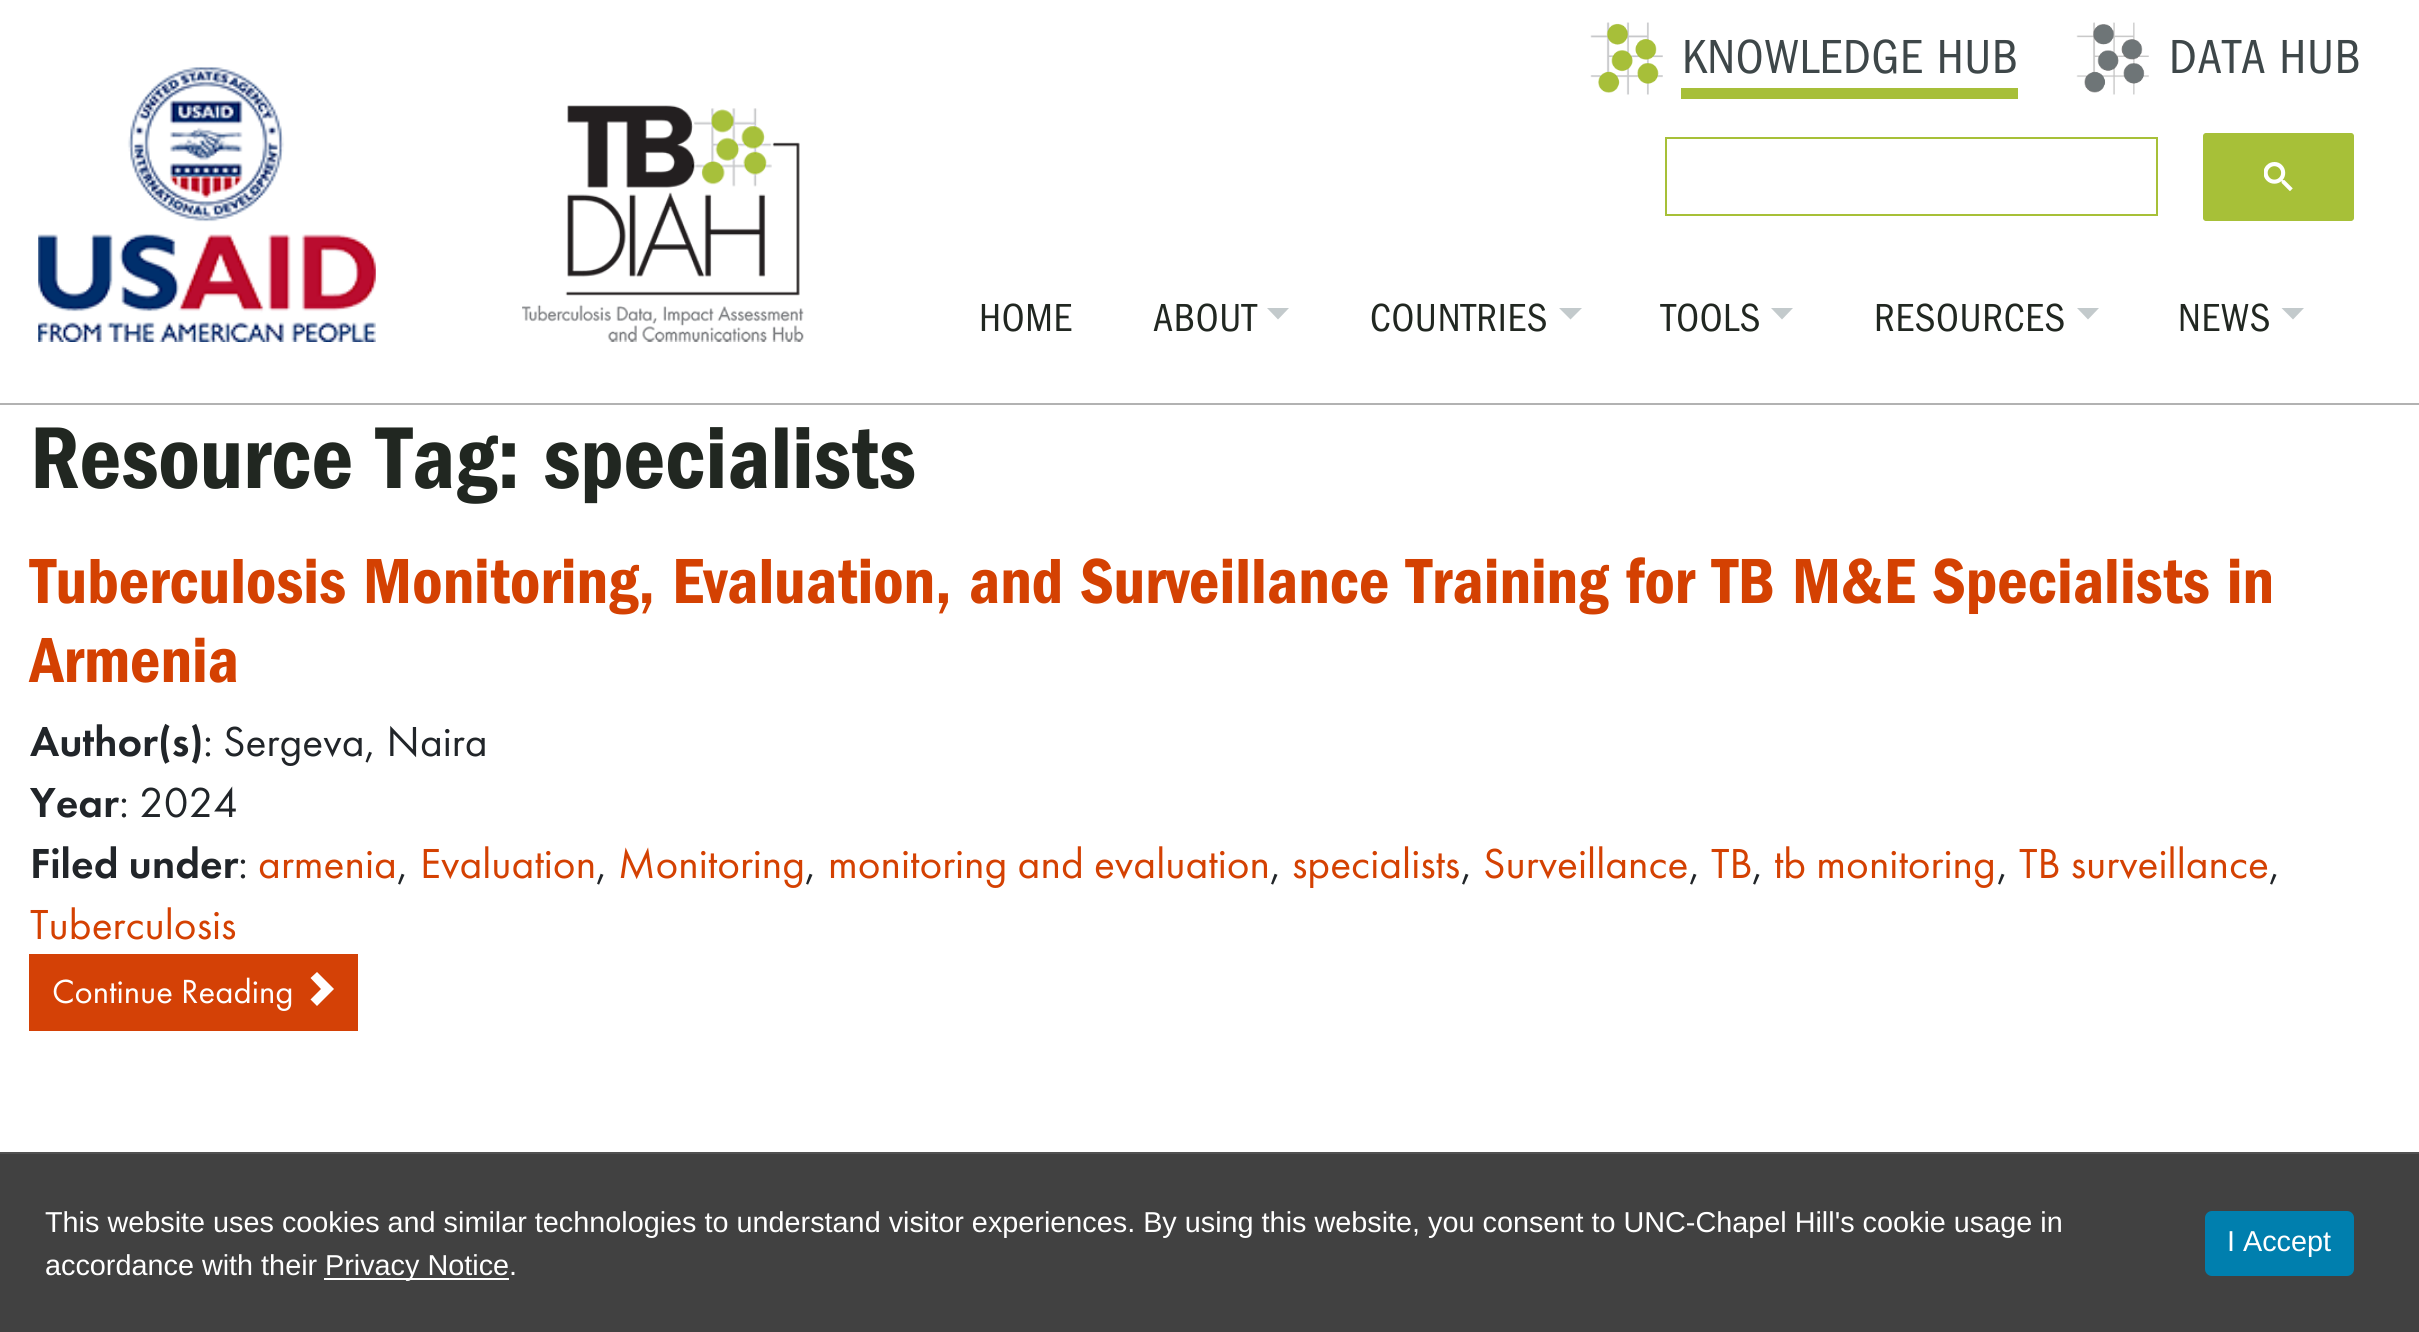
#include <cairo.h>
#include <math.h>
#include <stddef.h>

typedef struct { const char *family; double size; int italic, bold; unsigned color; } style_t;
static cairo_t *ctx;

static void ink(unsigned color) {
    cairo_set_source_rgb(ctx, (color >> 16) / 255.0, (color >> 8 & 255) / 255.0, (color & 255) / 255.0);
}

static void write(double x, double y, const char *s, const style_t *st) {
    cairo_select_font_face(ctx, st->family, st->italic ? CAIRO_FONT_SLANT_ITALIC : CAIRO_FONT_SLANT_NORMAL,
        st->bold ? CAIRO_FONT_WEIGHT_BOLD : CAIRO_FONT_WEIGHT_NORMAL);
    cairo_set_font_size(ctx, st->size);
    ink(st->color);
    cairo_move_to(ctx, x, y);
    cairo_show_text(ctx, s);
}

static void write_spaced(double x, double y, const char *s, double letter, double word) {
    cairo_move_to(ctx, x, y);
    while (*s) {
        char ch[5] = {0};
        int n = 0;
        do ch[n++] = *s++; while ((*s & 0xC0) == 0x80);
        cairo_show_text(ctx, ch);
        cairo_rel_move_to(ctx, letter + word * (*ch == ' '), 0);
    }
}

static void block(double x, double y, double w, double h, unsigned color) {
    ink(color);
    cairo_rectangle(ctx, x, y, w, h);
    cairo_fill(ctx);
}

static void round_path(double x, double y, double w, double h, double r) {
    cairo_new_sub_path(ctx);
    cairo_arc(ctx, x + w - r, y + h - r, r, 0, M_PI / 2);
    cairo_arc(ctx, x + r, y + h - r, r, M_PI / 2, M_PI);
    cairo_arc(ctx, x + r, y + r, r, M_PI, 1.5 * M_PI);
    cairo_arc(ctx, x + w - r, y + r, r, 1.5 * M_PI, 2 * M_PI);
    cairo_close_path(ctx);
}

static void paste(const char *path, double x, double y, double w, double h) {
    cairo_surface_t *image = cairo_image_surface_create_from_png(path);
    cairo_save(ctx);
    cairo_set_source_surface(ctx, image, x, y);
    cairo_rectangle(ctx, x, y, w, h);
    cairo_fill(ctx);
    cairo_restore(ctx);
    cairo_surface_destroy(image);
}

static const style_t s1 = {"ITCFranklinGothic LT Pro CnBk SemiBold", 90.75, 0, 0, 0x212721};
static const style_t s2 = {"ITCFranklinGothic LT Pro CnBk SemiBold", 66, 0, 0, 0xd44102};
static const style_t s3 = {"Futura PT Medium", 43.5, 0, 0, 0x212529};
static const style_t s4 = {"Futura PT", 43.5, 0, 0, 0x212529};
static const style_t s5 = {"Futura PT", 43.5, 0, 0, 0xd44102};
static const style_t s6 = {"Futura PT", 34.75, 0, 0, 0xffffff};
static const style_t s7 = {"Liberation Sans", 28.8, 0, 0, 0xffffff};

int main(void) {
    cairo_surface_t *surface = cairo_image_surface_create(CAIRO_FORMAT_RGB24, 2419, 1332);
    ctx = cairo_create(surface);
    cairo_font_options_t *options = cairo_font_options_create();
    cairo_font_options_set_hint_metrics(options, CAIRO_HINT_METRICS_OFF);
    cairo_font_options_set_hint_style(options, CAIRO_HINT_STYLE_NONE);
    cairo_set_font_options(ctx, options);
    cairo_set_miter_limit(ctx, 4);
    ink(0xffffff);
    cairo_paint(ctx);
    block(0, 403, 2419, 2, 0xb2b2b2);
    paste("pic1.png", 38, 67, 338, 275);
    paste("pic2.png", 522, 105, 282, 237);
    paste("pic3.png", 1590, 22, 73, 73);
    cairo_select_font_face(ctx, "ITCFranklinGothic LT Pro CnBk", CAIRO_FONT_SLANT_NORMAL, CAIRO_FONT_WEIGHT_NORMAL);
    cairo_set_font_size(ctx, 49.5);
    ink(0x3e4749);
    write_spaced(1682, 73, "KNOWLEDGE HUB", 0.7, 0);
    block(1681, 88, 337, 11, 0xa7bf39);
    paste("pic4.png", 2076, 22, 73, 73);
    ink(0x3e4749);
    write_spaced(2169, 73, "DATA HUB", 0.7, 0);
    cairo_rectangle(ctx, 1666, 138, 491, 77);
    ink(0xa7c038);
    cairo_stroke(ctx);
    round_path(2202, 132, 153, 90, 4);
    cairo_fill_preserve(ctx);
    ink(0xffffff);
    cairo_stroke(ctx);
    paste("pic5.png", 2264, 162, 29, 29);
    cairo_set_font_size(ctx, 40.5);
    ink(0x212721);
    write_spaced(979, 331, "HOME", 0.7, 0);
    write_spaced(1153, 331, "ABOUT", 0.7, 0);
    ink(0xc3cacc);
    cairo_new_path(ctx);
    cairo_move_to(ctx, 1267, 308);
    cairo_line_to(ctx, 1289, 308);
    cairo_line_to(ctx, 1278, 319.5);
    cairo_close_path(ctx);
    cairo_fill(ctx);
    ink(0x212721);
    write_spaced(1370, 331, "COUNTRIES", 0.7, 0);
    ink(0xc3cacc);
    cairo_new_path(ctx);
    cairo_move_to(ctx, 1559, 308);
    cairo_line_to(ctx, 1582, 308);
    cairo_line_to(ctx, 1570.5, 319.5);
    cairo_close_path(ctx);
    cairo_fill(ctx);
    ink(0x212721);
    write_spaced(1661, 331, "TOOLS", 0.7, 0);
    ink(0xc3cacc);
    cairo_new_path(ctx);
    cairo_move_to(ctx, 1771, 308);
    cairo_line_to(ctx, 1793, 308);
    cairo_line_to(ctx, 1782, 319.5);
    cairo_close_path(ctx);
    cairo_fill(ctx);
    ink(0x212721);
    write_spaced(1874, 331, "RESOURCES", 0.7, 0);
    ink(0xc3cacc);
    cairo_new_path(ctx);
    cairo_move_to(ctx, 2077, 308);
    cairo_line_to(ctx, 2099, 308);
    cairo_line_to(ctx, 2088, 319.5);
    cairo_close_path(ctx);
    cairo_fill(ctx);
    ink(0x212721);
    write_spaced(2178, 331, "NEWS", 0.7, 0);
    ink(0xc3cacc);
    cairo_new_path(ctx);
    cairo_move_to(ctx, 2281.5, 308);
    cairo_line_to(ctx, 2304, 308);
    cairo_line_to(ctx, 2293, 319.5);
    cairo_close_path(ctx);
    cairo_fill(ctx);
    write(30, 488, "Resource Tag: specialists", &s1);
    write(30, 603, "Tuberculosis Monitoring, Evaluation, and Surveillance Training for TB M&E Specialists in", &s2);
    write(30, 682, "Armenia", &s2);
    write(30, 756, "Author(s)", &s3);
    write(203, 756, ": Sergeva, Naira", &s4);
    write(30, 817, "Year", &s3);
    write(119, 817, ": 2024", &s4);
    write(30, 878, "Filed under", &s3);
    write(238, 878, ":", &s4);
    write(258, 878, "armenia", &s5);
    write(397, 878, ",", &s4);
    write(420, 878, "Evaluation", &s5);
    write(596, 878, ",", &s4);
    write(618, 878, "Monitoring", &s5);
    write(805, 878, ",", &s4);
    write(828, 878, "monitoring and evaluation", &s5);
    write(1270, 878, ",", &s4);
    write(1292, 878, "specialists", &s5);
    write(1461, 878, ",", &s4);
    write(1483, 878, "Surveillance", &s5);
    write(1689, 878, ",", &s4);
    write(1711, 878, "TB", &s5);
    write(1752, 878, ",", &s4);
    write(1774, 878, "tb monitoring", &s5);
    write(1997, 878, ",", &s4);
    write(2019, 878, "TB surveillance", &s5);
    write(2269, 878, ",", &s4);
    write(30, 939, "Tuberculosis", &s5);
    block(29, 954, 329, 77, 0xd44106);
    write(52, 1003, "Continue Reading", &s6);
    cairo_new_path(ctx);
    cairo_move_to(ctx, 317, 972);
    cairo_line_to(ctx, 334, 989);
    cairo_line_to(ctx, 317, 1006);
    cairo_line_to(ctx, 310.5, 999.5);
    cairo_line_to(ctx, 321, 989);
    cairo_line_to(ctx, 310.5, 978);
    cairo_close_path(ctx);
    cairo_fill(ctx);
    block(0, 1154, 2419, 178, 0x414141);
    block(0, 1152, 2419, 2, 0x515151);
    write(45, 1232, "This website uses cookies and similar technologies to understand visitor experiences. By using this website, you consent to UNC-Chapel Hill's cookie usage in", &s7);
    write(45, 1275, "accordance with their", &s7);
    block(324, 1278, 185, 2, 0xffffff);
    write(325, 1275, "Privacy Notice.", &s7);
    ink(0x007fae);
    round_path(2205, 1211, 149, 65, 7);
    cairo_fill(ctx);
    write(2227, 1251, "I Accept", &s7);
    cairo_surface_write_to_png(surface, "screenshot.png");
    cairo_font_options_destroy(options);
    cairo_destroy(ctx);
    cairo_surface_destroy(surface);
    return 0;
}
